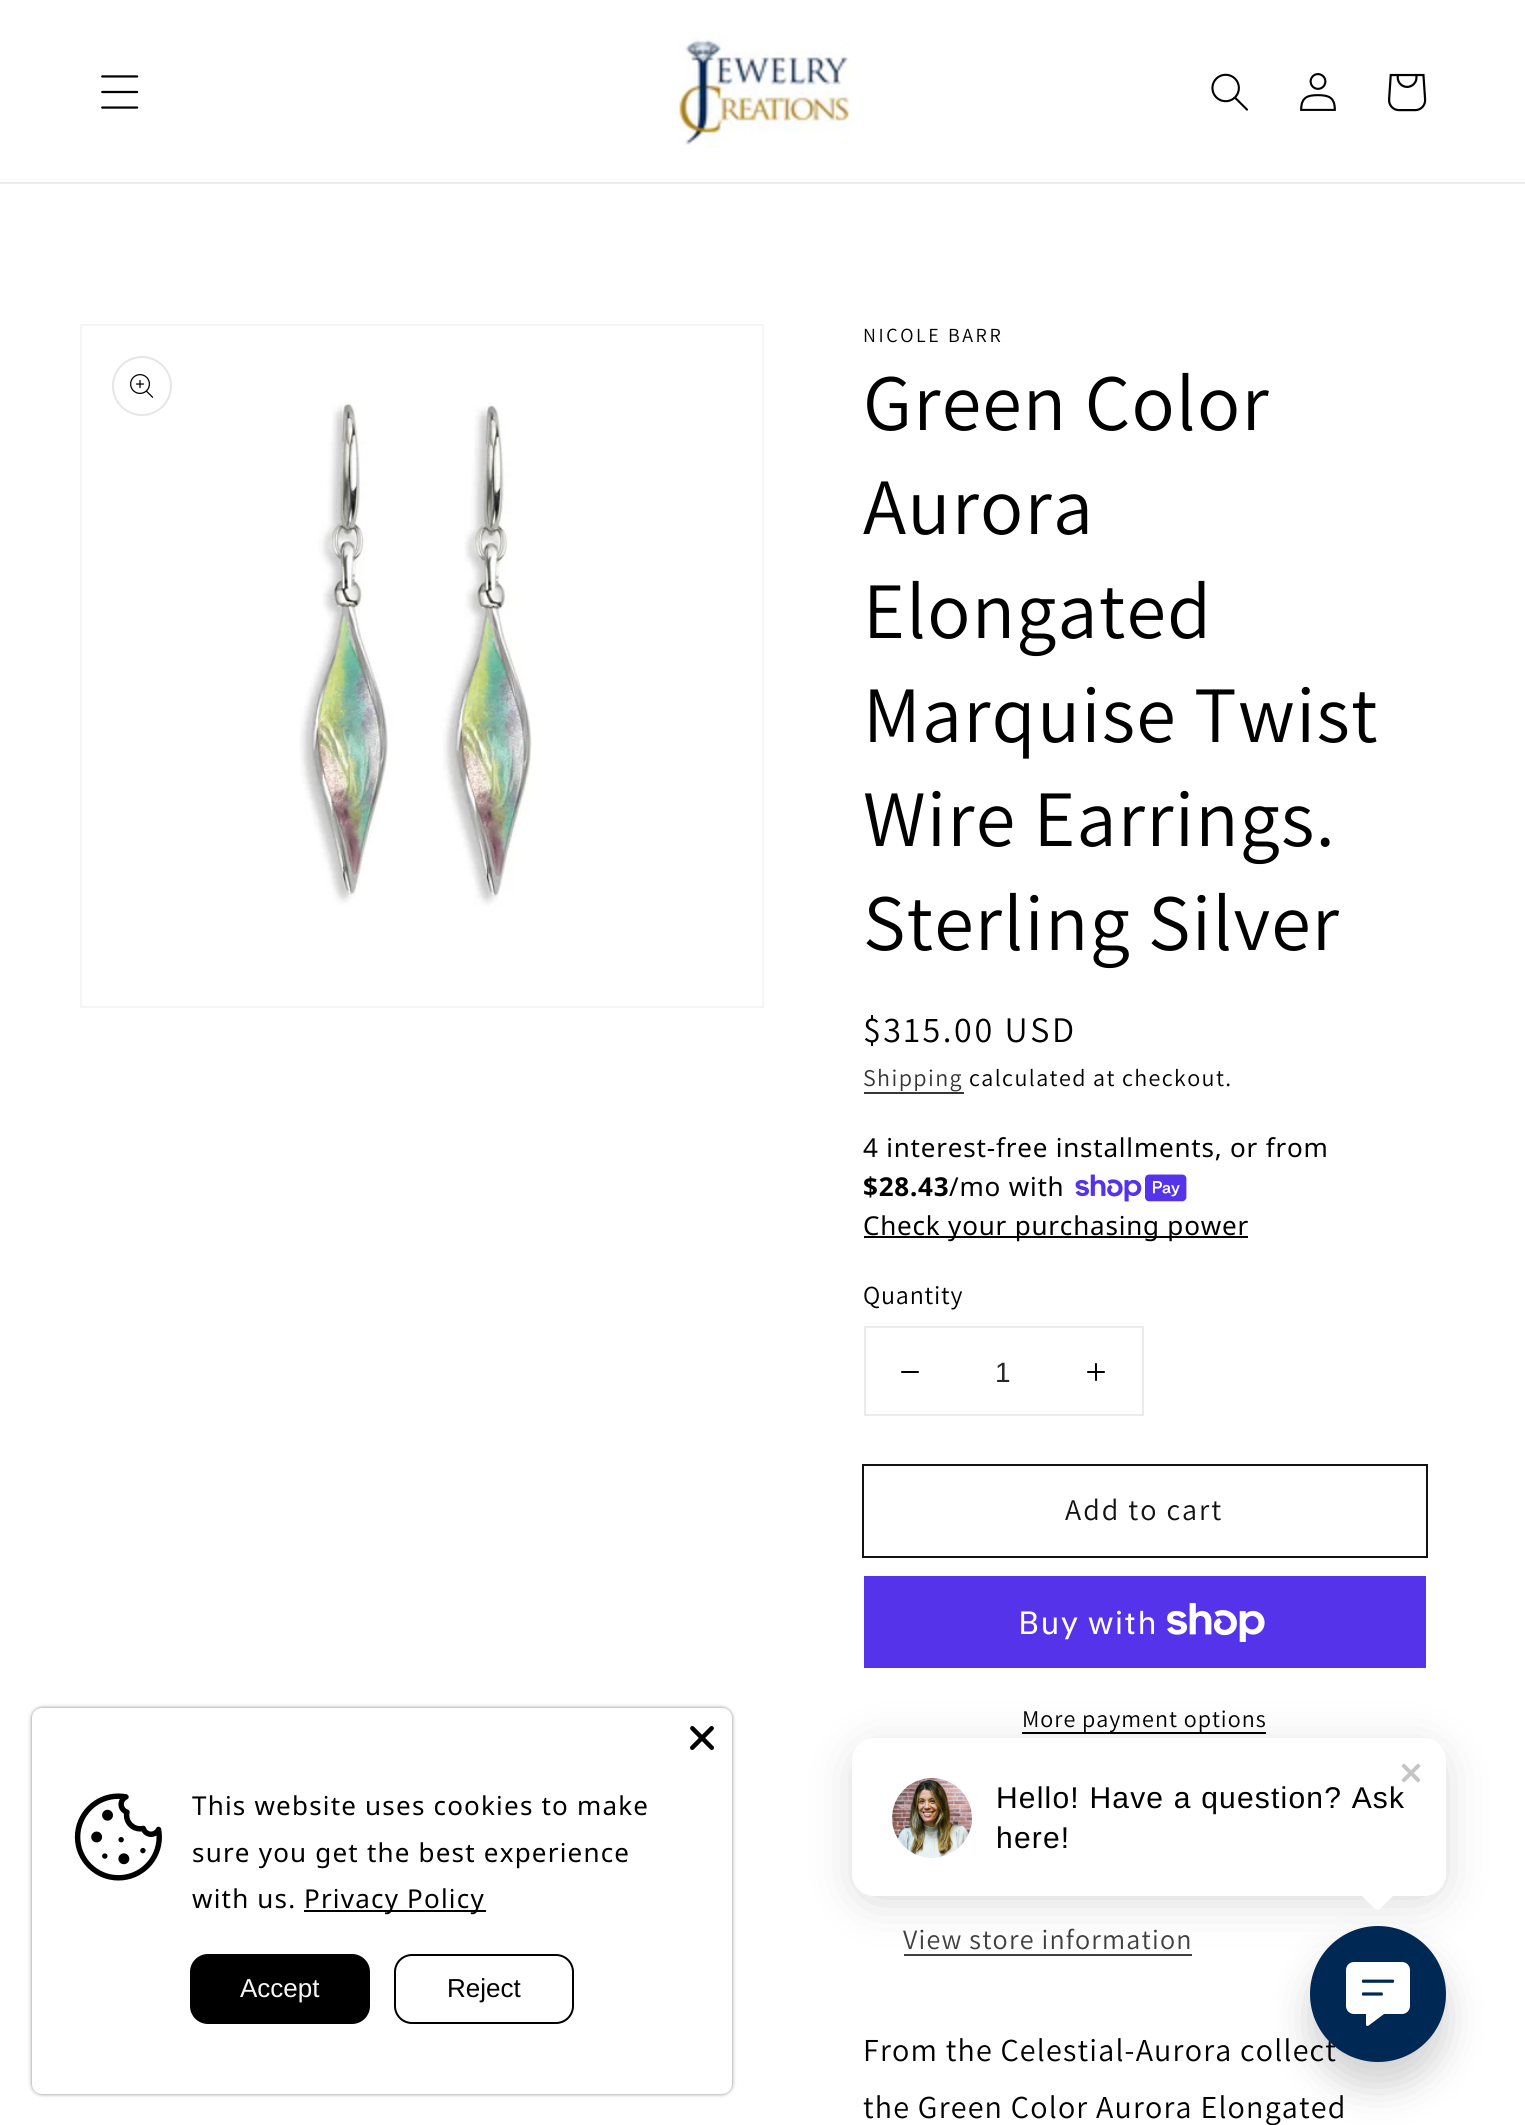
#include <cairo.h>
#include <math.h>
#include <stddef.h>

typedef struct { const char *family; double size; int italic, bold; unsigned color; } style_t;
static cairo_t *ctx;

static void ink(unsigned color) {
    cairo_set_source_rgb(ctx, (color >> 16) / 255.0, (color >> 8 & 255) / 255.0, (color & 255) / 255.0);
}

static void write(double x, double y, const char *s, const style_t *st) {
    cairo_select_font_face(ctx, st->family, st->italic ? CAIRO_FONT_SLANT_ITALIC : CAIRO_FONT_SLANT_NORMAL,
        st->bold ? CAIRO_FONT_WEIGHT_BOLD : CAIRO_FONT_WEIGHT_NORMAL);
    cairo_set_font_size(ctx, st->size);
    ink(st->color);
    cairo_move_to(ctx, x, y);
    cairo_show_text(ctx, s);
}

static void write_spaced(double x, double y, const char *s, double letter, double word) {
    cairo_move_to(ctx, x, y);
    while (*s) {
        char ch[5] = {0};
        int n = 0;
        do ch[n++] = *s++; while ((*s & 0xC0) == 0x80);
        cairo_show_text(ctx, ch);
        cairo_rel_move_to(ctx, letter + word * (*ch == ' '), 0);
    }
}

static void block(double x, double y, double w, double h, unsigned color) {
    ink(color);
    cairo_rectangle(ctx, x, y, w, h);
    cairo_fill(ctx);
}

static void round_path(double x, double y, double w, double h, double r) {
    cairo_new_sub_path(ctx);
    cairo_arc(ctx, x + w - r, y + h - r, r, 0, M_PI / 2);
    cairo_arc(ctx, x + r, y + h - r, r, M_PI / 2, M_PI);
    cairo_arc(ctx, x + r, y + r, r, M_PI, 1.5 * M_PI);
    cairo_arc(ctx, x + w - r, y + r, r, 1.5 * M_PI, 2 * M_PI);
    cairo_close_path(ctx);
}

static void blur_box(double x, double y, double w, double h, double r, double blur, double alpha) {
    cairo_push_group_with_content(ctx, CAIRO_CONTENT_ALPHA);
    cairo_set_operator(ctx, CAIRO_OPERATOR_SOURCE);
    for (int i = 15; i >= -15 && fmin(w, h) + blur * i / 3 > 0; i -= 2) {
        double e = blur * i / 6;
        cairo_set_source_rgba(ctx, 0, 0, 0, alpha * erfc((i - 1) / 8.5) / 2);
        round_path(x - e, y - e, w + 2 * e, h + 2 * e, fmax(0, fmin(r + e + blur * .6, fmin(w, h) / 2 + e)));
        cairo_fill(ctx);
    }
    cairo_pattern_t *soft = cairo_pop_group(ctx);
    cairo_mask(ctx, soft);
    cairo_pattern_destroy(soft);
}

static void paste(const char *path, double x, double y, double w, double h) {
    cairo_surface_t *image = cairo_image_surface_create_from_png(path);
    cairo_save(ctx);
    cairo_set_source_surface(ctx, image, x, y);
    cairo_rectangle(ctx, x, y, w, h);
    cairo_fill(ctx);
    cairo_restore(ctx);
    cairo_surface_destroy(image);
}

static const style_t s1 = {"Liberation Sans", 28, 0, 0, 0x262626};
static const style_t s2 = {"Liberation Sans", 26, 0, 0, 0xf8f8f8};
static const style_t s3 = {"Liberation Sans", 26, 0, 0, 0x000000};

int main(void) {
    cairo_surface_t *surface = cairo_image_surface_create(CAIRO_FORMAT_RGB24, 1525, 2125);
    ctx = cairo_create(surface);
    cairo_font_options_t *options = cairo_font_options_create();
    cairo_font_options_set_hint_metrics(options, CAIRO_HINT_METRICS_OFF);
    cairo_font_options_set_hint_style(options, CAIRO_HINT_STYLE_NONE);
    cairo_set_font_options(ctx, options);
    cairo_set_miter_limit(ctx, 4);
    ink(0xffffff);
    cairo_paint(ctx);
    block(0, 182, 1525, 2, 0xebebeb);
    paste("pic1.png", 101, 75, 38, 34);
    paste("pic2.png", 677, 36, 175, 112);
    paste("pic3.png", 1211, 73, 37, 38);
    paste("pic4.png", 1300, 73, 36, 38);
    paste("pic5.png", 1388, 73, 39, 39);
    cairo_rectangle(ctx, 81, 325, 682, 682);
    ink(0xf5f5f5);
    cairo_stroke(ctx);
    cairo_arc(ctx, 142, 386, 29, 0, 2 * M_PI);
    ink(0xe6e6e6);
    cairo_stroke(ctx);
    paste("pic6.png", 130, 374, 24, 24);
    paste("pic7.png", 299, 402, 234, 504);
    cairo_select_font_face(ctx, "Assistant", CAIRO_FONT_SLANT_NORMAL, CAIRO_FONT_WEIGHT_NORMAL);
    cairo_set_font_size(ctx, 20);
    ink(0x000000);
    write_spaced(863, 342, "NICOLE BARR", 2.6, 0);
    cairo_set_font_size(ctx, 80);
    write_spaced(863, 430, "Green Color", 1.2, 0);
    write_spaced(863, 534, "Aurora", 1.2, 0);
    write_spaced(863, 638, "Elongated", 1.2, 0);
    write_spaced(863, 742, "Marquise Twist", 1.2, 0);
    write_spaced(863, 846, "Wire Earrings.", 1.2, 0);
    write_spaced(863, 950, "Sterling Silver", 1.2, 0);
    cairo_set_font_size(ctx, 36);
    write_spaced(863, 1042, "$315.00 USD", 2.6, 0);
    cairo_set_font_size(ctx, 24);
    ink(0x363636);
    write_spaced(863, 1086, "Shipping", 1.4, 0);
    block(864, 1092, 100, 2, 0x363636);
    ink(0x000000);
    write_spaced(969, 1086, "calculated at checkout.", 1.4, 0);
    cairo_select_font_face(ctx, "Noto Sans", CAIRO_FONT_SLANT_NORMAL, CAIRO_FONT_WEIGHT_NORMAL);
    cairo_set_font_size(ctx, 26);
    write_spaced(863, 1157, "4 interest-free installments, or from", 0.8, 0);
    cairo_select_font_face(ctx, "Noto Sans", CAIRO_FONT_SLANT_NORMAL, CAIRO_FONT_WEIGHT_BOLD);
    write_spaced(863, 1196, "$28.43", 0.8, 0);
    cairo_select_font_face(ctx, "Noto Sans", CAIRO_FONT_SLANT_NORMAL, CAIRO_FONT_WEIGHT_NORMAL);
    write_spaced(949, 1196, "/mo with", 0.8, 0);
    paste("pic8.png", 1075, 1174, 112, 28);
    block(864, 1236, 384, 2, 0x000000);
    write_spaced(863, 1235, "Check your purchasing power", 0.8, 0);
    cairo_select_font_face(ctx, "Assistant", CAIRO_FONT_SLANT_NORMAL, CAIRO_FONT_WEIGHT_NORMAL);
    write_spaced(863, 1304, "Quantity", 0.8, 0);
    cairo_rectangle(ctx, 865, 1327, 278, 88);
    ink(0xebebeb);
    cairo_stroke(ctx);
    paste("pic9.png", 901, 1371, 18, 2);
    write(995, 1382, "1", &s1);
    paste("pic10.png", 1087, 1363, 18, 18);
    cairo_rectangle(ctx, 863, 1465, 564, 92);
    ink(0x121212);
    cairo_stroke(ctx);
    cairo_select_font_face(ctx, "Assistant", CAIRO_FONT_SLANT_NORMAL, CAIRO_FONT_WEIGHT_NORMAL);
    cairo_set_font_size(ctx, 30);
    write_spaced(1065, 1520, "Add to cart", 2, 0);
    block(864, 1576, 562, 92, 0x5433eb);
    cairo_select_font_face(ctx, "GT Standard", CAIRO_FONT_SLANT_NORMAL, CAIRO_FONT_WEIGHT_NORMAL);
    cairo_set_font_size(ctx, 32);
    ink(0xffffff);
    write_spaced(1018, 1634, "Buy with", 1.2, 0);
    paste("pic11.png", 1167, 1603, 98, 39);
    block(1022, 1732, 244, 2, 0x000000);
    cairo_select_font_face(ctx, "Assistant", CAIRO_FONT_SLANT_NORMAL, CAIRO_FONT_WEIGHT_NORMAL);
    cairo_set_font_size(ctx, 24);
    write_spaced(1022, 1727, "More payment options", 1, 0);
    cairo_set_font_size(ctx, 28);
    ink(0x404040);
    write_spaced(903, 1949, "View store information", 1.2, 0);
    block(904, 1954, 288, 2, 0x404040);
    cairo_set_font_size(ctx, 32);
    ink(0x000000);
    write_spaced(863, 2061, "From the Celestial-Aurora collect", 1.2, 0);
    write_spaced(863, 2118, "the Green Color Aurora Elongated", 1.2, 0);
    ink(0x000000);
    blur_box(32, 1708, 700, 386, 10, 2, 0.5);
    ink(0xffffff);
    round_path(32, 1708, 700, 386, 10);
    cairo_fill(ctx);
    paste("pic12.png", 690, 1726, 24, 24);
    paste("pic13.png", 74, 1793, 88, 88);
    cairo_select_font_face(ctx, "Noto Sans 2", CAIRO_FONT_SLANT_NORMAL, CAIRO_FONT_WEIGHT_NORMAL);
    cairo_set_font_size(ctx, 26);
    ink(0x000000);
    write_spaced(192, 1815, "This website uses cookies to make", 1.2, 0);
    write_spaced(192, 1862, "sure you get the best experience", 1.2, 0);
    write_spaced(192, 1908, "with us.", 1.2, 0);
    block(304, 1910, 182, 2, 0x000000);
    write_spaced(304, 1908, "Privacy Policy", 1.2, 0);
    round_path(190, 1954, 180, 70, 18);
    cairo_fill(ctx);
    write(240, 1997, "Accept", &s2);
    round_path(395, 1955, 178, 68, 17);
    ink(0x000000);
    cairo_stroke(ctx);
    write(447, 1997, "Reject", &s3);
    ink(0x000000);
    blur_box(860, 1754, 578, 142, 14, 24, 0.18);
    ink(0xffffff);
    round_path(852, 1738, 594, 158, 22);
    cairo_fill(ctx);
    paste("pic14.png", 1401, 1763, 20, 20);
    paste("pic15.png", 892, 1778, 80, 80);
    cairo_set_font_size(ctx, 30);
    ink(0x000000);
    write_spaced(996, 1808, "Hello! Have a question? Ask", 1.2, 0);
    write_spaced(996, 1848, "here!", 1.2, 0);
    ink(0xffffff);
    cairo_set_fill_rule(ctx, CAIRO_FILL_RULE_EVEN_ODD);
    cairo_new_path(ctx);
    cairo_move_to(ctx, 1356, 1890);
    cairo_line_to(ctx, 1372, 1906);
    cairo_curve_to(ctx, 1377, 1911, 1378, 1911, 1383, 1906);
    cairo_line_to(ctx, 1399, 1890);
    cairo_close_path(ctx);
    cairo_fill(ctx);
    ink(0x000000);
    blur_box(1310, 1950, 136, 136, 68, 19, 0.18);
    ink(0x002855);
    cairo_arc(ctx, 1378, 1994, 68, 0, 2 * M_PI);
    cairo_fill(ctx);
    paste("pic16.png", 1346, 1962, 64, 64);
    cairo_surface_write_to_png(surface, "screenshot.png");
    cairo_font_options_destroy(options);
    cairo_destroy(ctx);
    cairo_surface_destroy(surface);
    return 0;
}
